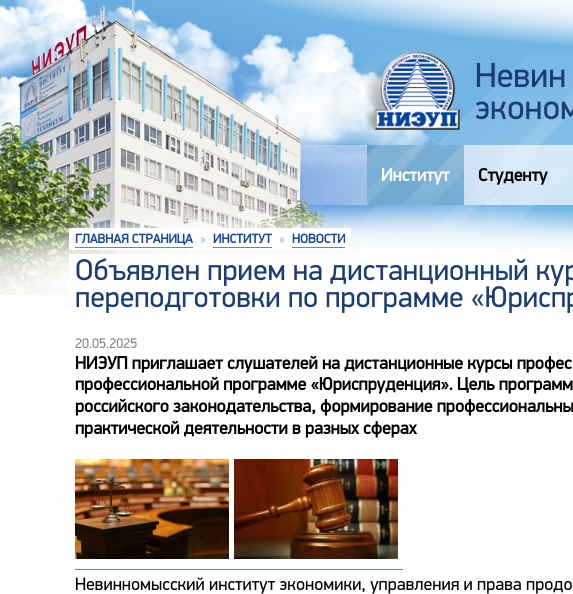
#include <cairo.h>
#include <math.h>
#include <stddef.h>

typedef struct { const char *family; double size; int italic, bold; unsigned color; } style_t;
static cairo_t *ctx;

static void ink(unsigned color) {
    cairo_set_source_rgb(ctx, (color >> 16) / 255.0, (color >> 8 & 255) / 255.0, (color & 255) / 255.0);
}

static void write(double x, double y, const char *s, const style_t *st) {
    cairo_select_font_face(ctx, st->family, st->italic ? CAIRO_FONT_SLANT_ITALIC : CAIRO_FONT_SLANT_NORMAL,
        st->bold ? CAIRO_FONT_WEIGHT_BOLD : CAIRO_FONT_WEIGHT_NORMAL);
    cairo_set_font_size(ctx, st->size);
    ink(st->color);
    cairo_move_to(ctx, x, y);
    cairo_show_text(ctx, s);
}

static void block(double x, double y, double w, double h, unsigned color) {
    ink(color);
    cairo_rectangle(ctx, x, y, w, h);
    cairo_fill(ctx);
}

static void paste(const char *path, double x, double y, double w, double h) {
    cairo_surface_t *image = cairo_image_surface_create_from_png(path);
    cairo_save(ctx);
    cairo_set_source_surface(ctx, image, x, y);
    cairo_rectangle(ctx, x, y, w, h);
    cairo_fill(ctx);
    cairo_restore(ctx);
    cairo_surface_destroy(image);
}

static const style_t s1 = {"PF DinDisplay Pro", 35, 0, 0, 0x1c3c76};
static const style_t s2 = {"PF DinDisplay Pro", 18, 0, 1, 0xffffff};
static const style_t s3 = {"PF DinDisplay Pro", 18, 0, 1, 0x000000};
static const style_t s4 = {"PF DinDisplay Pro", 13, 0, 1, 0x17469e};
static const style_t s5 = {"PF DinDisplay Pro", 13, 0, 0, 0x8bace9};
static const style_t s6 = {"PF DinDisplay Pro", 30, 0, 0, 0x1c3c76};
static const style_t s7 = {"PF DinDisplay Pro", 14, 0, 0, 0x888888};
static const style_t s8 = {"PF DinDisplay Pro", 18, 0, 0, 0x000000};

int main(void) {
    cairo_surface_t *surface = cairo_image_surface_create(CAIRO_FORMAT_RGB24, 573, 594);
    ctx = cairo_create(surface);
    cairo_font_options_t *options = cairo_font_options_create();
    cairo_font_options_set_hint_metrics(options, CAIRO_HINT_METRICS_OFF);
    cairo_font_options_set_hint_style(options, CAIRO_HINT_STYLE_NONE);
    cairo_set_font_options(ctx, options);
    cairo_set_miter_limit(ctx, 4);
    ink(0xffffff);
    cairo_paint(ctx);
    paste("pic1.png", 0, 0, 573, 289);
    paste("pic2.png", 0, 0, 519, 295);
    paste("pic3.png", 252, 0, 321, 45);
    paste("pic4.png", 364, 51, 96, 79);
    write(475, 87, "Невин", &s1);
    write(475, 119, "эконом", &s1);
    paste("pic6.png", 394, 228, 179, 26);
    paste("pic5.png", 0, 205, 573, 90);
    block(367, 145, 97, 60, 0x65a3cd);
    paste("pic7.png", 367, 145, 97, 60);
    write(381, 181, "Институт", &s2);
    write(478, 181, "Студенту", &s3);
    block(69, 228, 282, 22, 0xffffff);
    write(75, 243, "ГЛАВНАЯ СТРАНИЦА", &s4);
    block(75, 247, 118, 1, 0x5c84cf);
    write(200, 243, "»", &s5);
    write(213, 243, "ИНСТИТУТ", &s4);
    block(213, 247, 59, 1, 0x5c84cf);
    write(279, 243, "»", &s5);
    write(292, 243, "НОВОСТИ", &s4);
    block(292, 247, 53, 1, 0x5c84cf);
    block(69, 254, 504, 41, 0xffffff);
    write(75, 280, "Объявлен прием на дистанционный кур", &s6);
    write(75, 307, "переподготовки по программе «Юриспр", &s6);
    write(75, 348, "20.05.2025", &s7);
    write(75, 369, "НИЭУП приглашает слушателей на дистанционные курсы профес", &s3);
    write(75, 390, "профессиональной программе «Юриспруденция». Цель программ", &s3);
    write(75, 412, "российского законодательства, формирование профессиональны", &s3);
    write(75, 434, "практической деятельности в разных сферах", &s3);
    paste("pic8.png", 75, 459, 154, 100);
    paste("pic9.png", 234, 459, 164, 100);
    block(75, 569, 328, 1, 0x5c84cf);
    write(75, 590, "Невинномысский институт экономики, управления и права продо", &s8);
    cairo_surface_write_to_png(surface, "screenshot.png");
    cairo_font_options_destroy(options);
    cairo_destroy(ctx);
    cairo_surface_destroy(surface);
    return 0;
}
